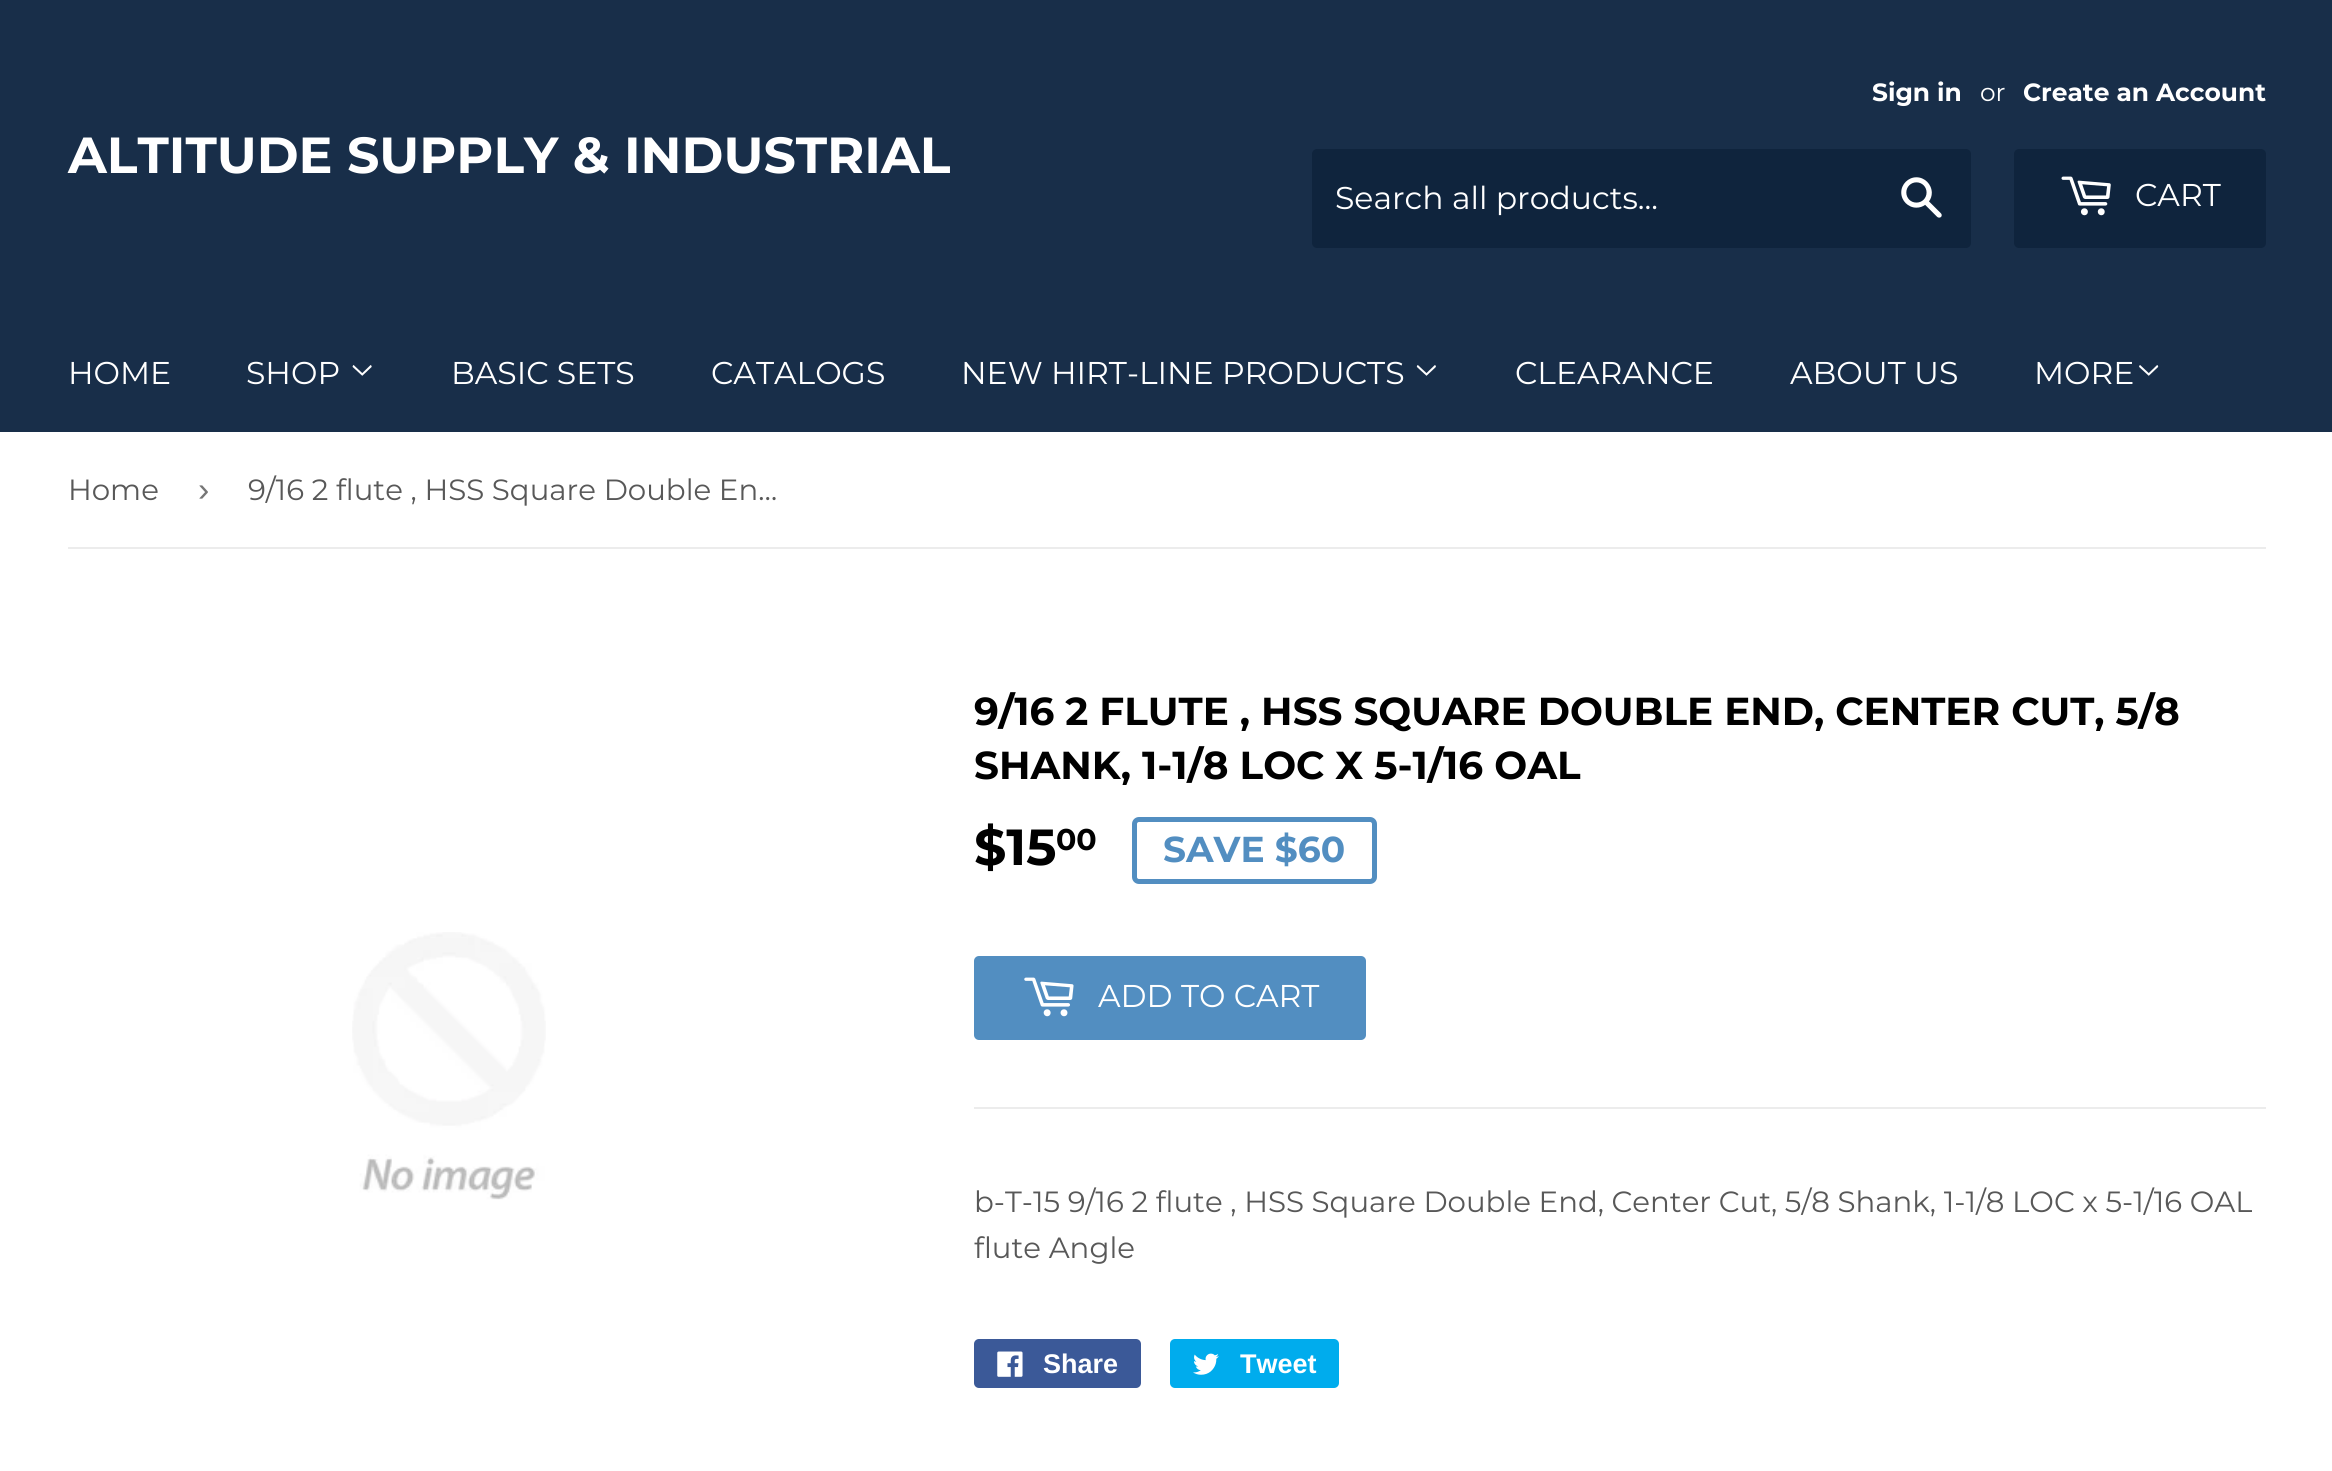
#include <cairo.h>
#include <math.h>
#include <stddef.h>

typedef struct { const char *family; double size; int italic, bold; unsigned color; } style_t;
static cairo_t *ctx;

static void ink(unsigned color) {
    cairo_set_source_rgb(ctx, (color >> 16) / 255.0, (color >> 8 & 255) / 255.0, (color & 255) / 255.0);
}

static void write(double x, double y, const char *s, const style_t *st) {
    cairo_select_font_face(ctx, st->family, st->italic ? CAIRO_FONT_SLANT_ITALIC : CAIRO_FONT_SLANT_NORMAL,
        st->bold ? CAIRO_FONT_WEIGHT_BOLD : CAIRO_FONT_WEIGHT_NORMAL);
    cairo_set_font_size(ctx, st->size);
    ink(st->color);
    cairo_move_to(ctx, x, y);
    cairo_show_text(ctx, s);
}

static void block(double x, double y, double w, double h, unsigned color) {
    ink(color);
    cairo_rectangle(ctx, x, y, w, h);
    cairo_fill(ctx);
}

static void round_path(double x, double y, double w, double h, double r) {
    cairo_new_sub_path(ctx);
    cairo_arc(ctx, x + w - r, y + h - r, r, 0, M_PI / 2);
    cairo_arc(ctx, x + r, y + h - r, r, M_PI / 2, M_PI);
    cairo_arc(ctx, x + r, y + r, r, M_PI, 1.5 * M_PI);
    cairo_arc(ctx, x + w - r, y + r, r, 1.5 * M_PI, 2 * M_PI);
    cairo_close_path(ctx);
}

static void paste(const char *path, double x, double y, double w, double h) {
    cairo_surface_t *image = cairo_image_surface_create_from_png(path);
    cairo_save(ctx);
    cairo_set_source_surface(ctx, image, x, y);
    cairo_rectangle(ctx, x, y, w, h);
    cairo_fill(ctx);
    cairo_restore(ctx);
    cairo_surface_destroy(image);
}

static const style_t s1 = {"Montserrat", 50.7, 0, 1, 0xffffff};
static const style_t s2 = {"Montserrat", 24.9, 0, 1, 0xffffff};
static const style_t s3 = {"Montserrat", 24.9, 0, 0, 0xffffff};
static const style_t s4 = {"Montserrat", 31.5, 0, 0, 0xffffff};
static const style_t s5 = {"Montserrat", 29.25, 0, 0, 0x585858};
static const style_t s6 = {"Liberation Sans", 34, 0, 0, 0x767676};
static const style_t s7 = {"Montserrat", 39, 0, 1, 0x000000};
static const style_t s8 = {"Montserrat", 50.7, 0, 1, 0x000000};
static const style_t s9 = {"Montserrat", 30, 0, 1, 0x000000};
static const style_t s10 = {"Montserrat", 36, 0, 1, 0x528ec1};
static const style_t s11 = {"Liberation Sans", 27, 0, 1, 0xffffff};

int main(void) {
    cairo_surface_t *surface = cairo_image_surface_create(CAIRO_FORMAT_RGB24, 2332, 1471);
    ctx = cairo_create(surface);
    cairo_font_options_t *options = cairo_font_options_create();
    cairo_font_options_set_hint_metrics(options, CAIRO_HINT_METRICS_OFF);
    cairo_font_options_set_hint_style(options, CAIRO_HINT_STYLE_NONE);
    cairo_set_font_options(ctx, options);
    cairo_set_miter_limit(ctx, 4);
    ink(0xffffff);
    cairo_paint(ctx);
    block(0, 0, 2332, 432, 0x182e49);
    write(68, 173, "ALTITUDE SUPPLY & INDUSTRIAL", &s1);
    write(1872, 101, "Sign in", &s2);
    write(1980, 101, "or", &s3);
    write(2023, 101, "Create an Account", &s2);
    ink(0x0f243d);
    round_path(1312, 149, 659, 99, 5);
    cairo_fill(ctx);
    write(1335, 209, "Search all products...", &s4);
    paste("pic1.png", 1901, 177, 41, 41);
    ink(0x0f243d);
    round_path(2014, 149, 252, 99, 5);
    cairo_fill(ctx);
    paste("pic2.png", 2061, 176, 50, 40);
    write(2135, 206, "CART", &s4);
    write(68, 384, "HOME", &s4);
    write(246, 384, "SHOP", &s4);
    paste("pic3.png", 352, 365, 20, 11);
    write(451, 384, "BASIC SETS", &s4);
    write(711, 384, "CATALOGS", &s4);
    write(961, 384, "NEW HIRT-LINE PRODUCTS", &s4);
    paste("pic4.png", 1416, 365, 20, 11);
    write(1515, 384, "CLEARANCE", &s4);
    write(1790, 384, "ABOUT US", &s4);
    write(2034, 384, "MORE", &s4);
    paste("pic5.png", 2139, 365, 20, 11);
    block(68, 547, 2198, 2, 0xececec);
    write(68, 500, "Home", &s5);
    write(198, 501, "›", &s6);
    write(248, 500, "9/16 2 flute , HSS Square Double En…", &s5);
    paste("pic6.png", 352, 932, 194, 268);
    write(974, 725, "9/16 2 FLUTE , HSS SQUARE DOUBLE END, CENTER CUT, 5/8", &s7);
    write(974, 779, "SHANK, 1-1/8 LOC X 5-1/16 OAL", &s7);
    write(974, 865, "$15", &s8);
    write(1056, 850, "00", &s9);
    round_path(1134.5, 819.5, 240, 62, 4.5);
    ink(0x528ec1);
    cairo_set_line_width(ctx, 5);
    cairo_stroke(ctx);
    write(1163, 862, "SAVE $60", &s10);
    round_path(974, 956, 392, 84, 5);
    cairo_fill(ctx);
    paste("pic7.png", 1024, 977, 50, 40);
    write(1098, 1007, "ADD TO CART", &s4);
    block(974, 1107, 1292, 2, 0xececec);
    write(974, 1212, "b-T-15 9/16 2 flute , HSS Square Double End, Center Cut, 5/8 Shank, 1-1/8 LOC x 5-1/16 OAL", &s5);
    write(974, 1258, "flute Angle", &s5);
    ink(0x3b5998);
    round_path(974, 1339, 167, 49, 5);
    cairo_fill(ctx);
    paste("pic8.png", 997, 1351, 26, 26);
    write(1043, 1373, "Share", &s11);
    ink(0x00aced);
    round_path(1170, 1339, 169, 49, 5);
    cairo_fill(ctx);
    paste("pic9.png", 1193, 1353, 26, 22);
    write(1240, 1373, "Tweet", &s11);
    cairo_surface_write_to_png(surface, "screenshot.png");
    cairo_font_options_destroy(options);
    cairo_destroy(ctx);
    cairo_surface_destroy(surface);
    return 0;
}
